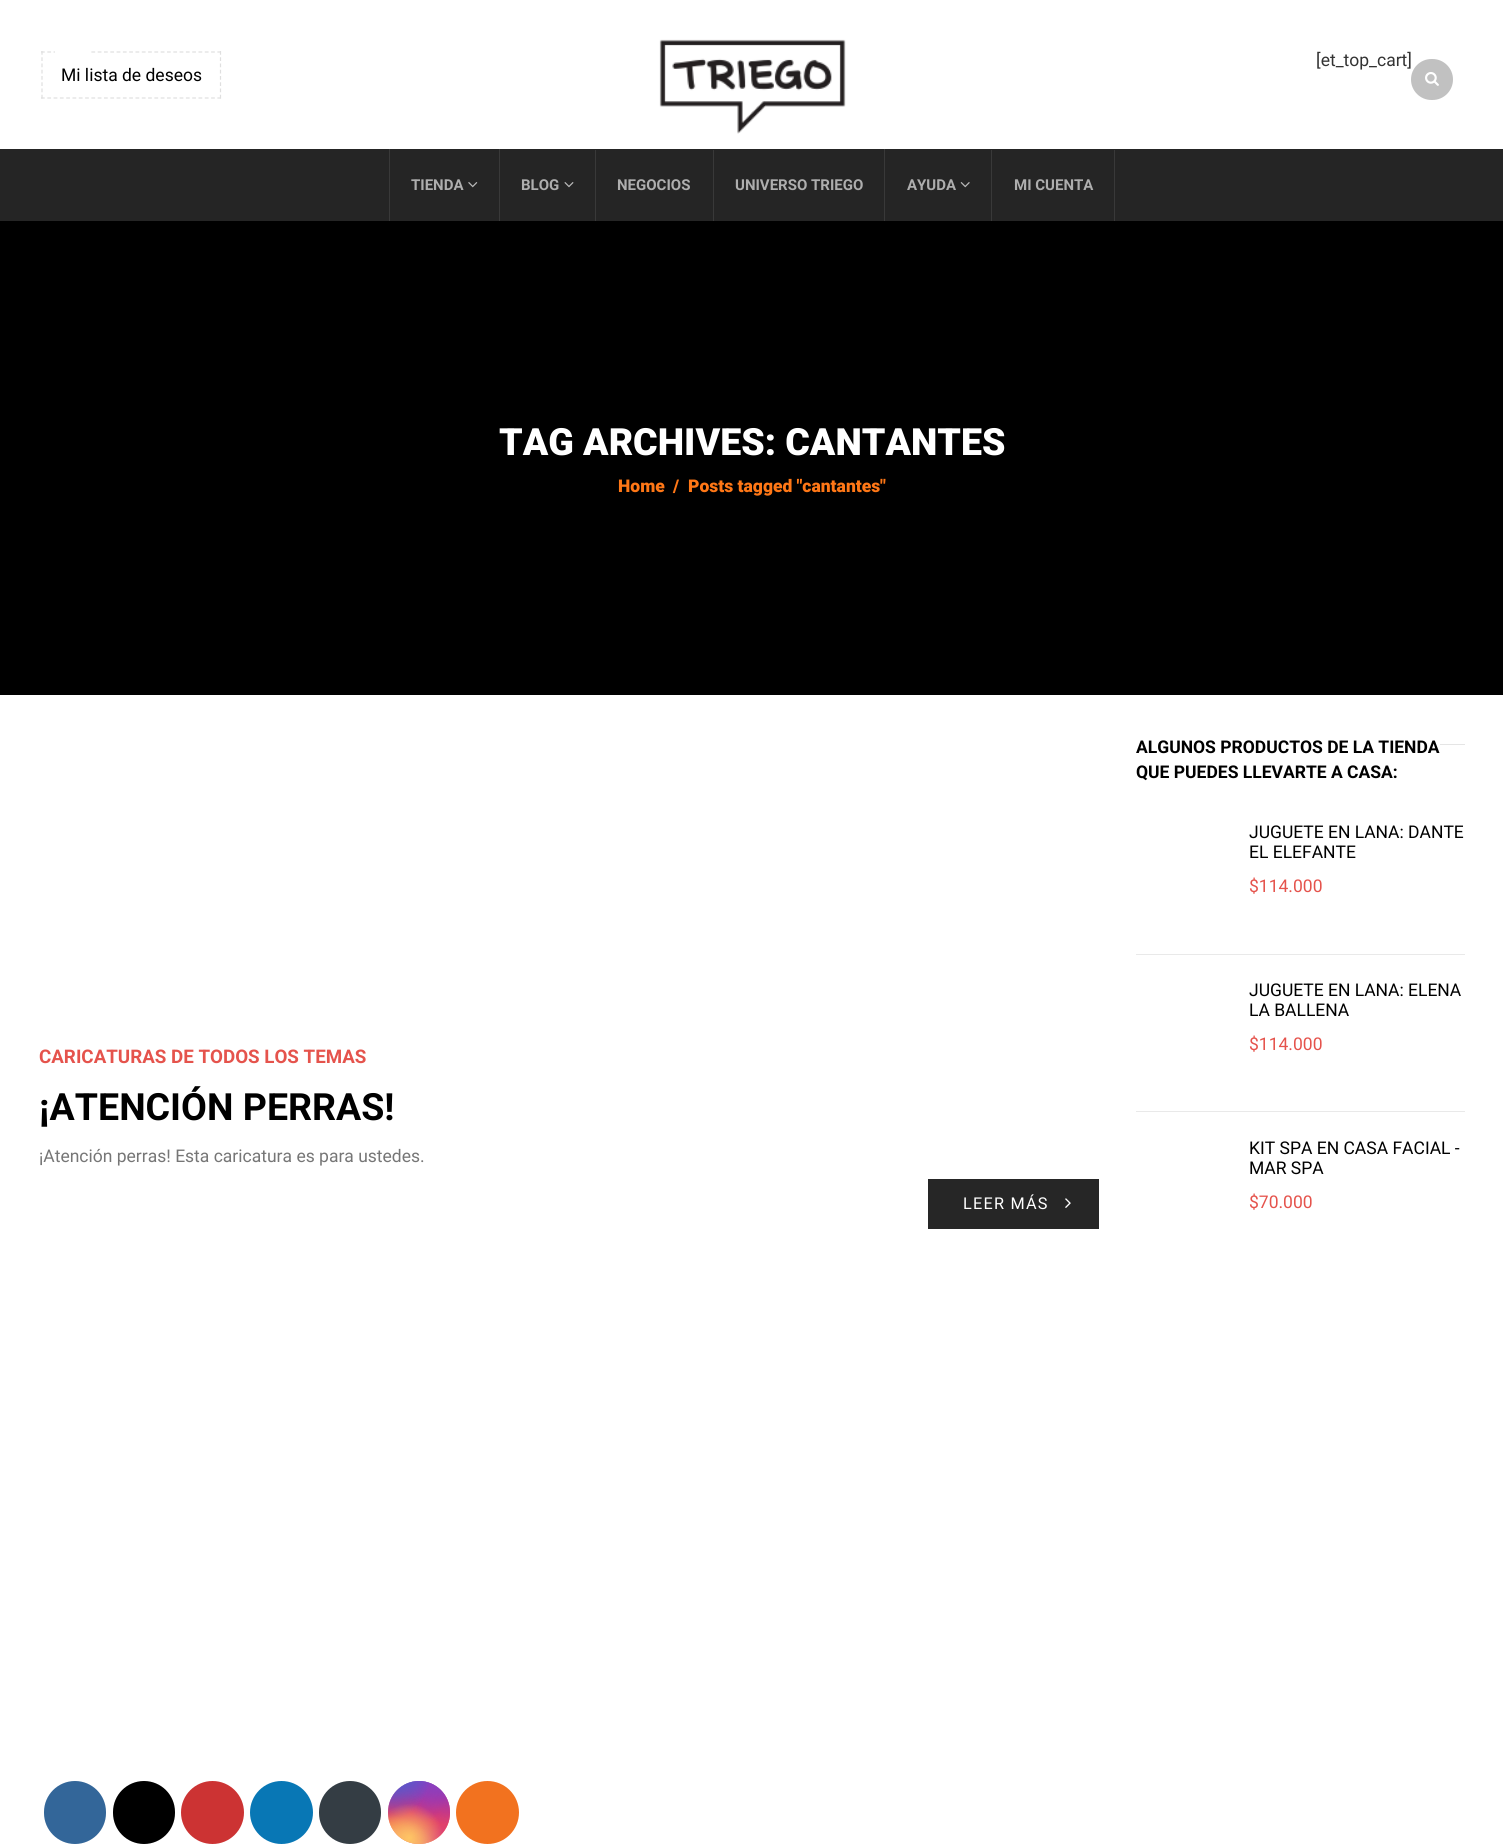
#include <cairo.h>
#include <math.h>
#include <stddef.h>

typedef struct { const char *family; double size; int italic, bold; unsigned color; } style_t;
static cairo_t *ctx;

static void ink(unsigned color) {
    cairo_set_source_rgb(ctx, (color >> 16) / 255.0, (color >> 8 & 255) / 255.0, (color & 255) / 255.0);
}

static void write(double x, double y, const char *s, const style_t *st) {
    cairo_select_font_face(ctx, st->family, st->italic ? CAIRO_FONT_SLANT_ITALIC : CAIRO_FONT_SLANT_NORMAL,
        st->bold ? CAIRO_FONT_WEIGHT_BOLD : CAIRO_FONT_WEIGHT_NORMAL);
    cairo_set_font_size(ctx, st->size);
    ink(st->color);
    cairo_move_to(ctx, x, y);
    cairo_show_text(ctx, s);
}

static void write_spaced(double x, double y, const char *s, double letter, double word) {
    cairo_move_to(ctx, x, y);
    while (*s) {
        char ch[5] = {0};
        int n = 0;
        do ch[n++] = *s++; while ((*s & 0xC0) == 0x80);
        cairo_show_text(ctx, ch);
        cairo_rel_move_to(ctx, letter + word * (*ch == ' '), 0);
    }
}

static void block(double x, double y, double w, double h, unsigned color) {
    ink(color);
    cairo_rectangle(ctx, x, y, w, h);
    cairo_fill(ctx);
}

static void round_path(double x, double y, double w, double h, double r) {
    cairo_new_sub_path(ctx);
    cairo_arc(ctx, x + w - r, y + h - r, r, 0, M_PI / 2);
    cairo_arc(ctx, x + r, y + h - r, r, M_PI / 2, M_PI);
    cairo_arc(ctx, x + r, y + r, r, M_PI, 1.5 * M_PI);
    cairo_arc(ctx, x + w - r, y + r, r, 1.5 * M_PI, 2 * M_PI);
    cairo_close_path(ctx);
}

static void paste(const char *path, double x, double y, double w, double h) {
    cairo_surface_t *image = cairo_image_surface_create_from_png(path);
    cairo_save(ctx);
    cairo_set_source_surface(ctx, image, x, y);
    cairo_rectangle(ctx, x, y, w, h);
    cairo_fill(ctx);
    cairo_restore(ctx);
    cairo_surface_destroy(image);
}

static const style_t s1 = {"Roboto", 17.5, 0, 0, 0x333333};
static const style_t s2 = {"Roboto", 17.5, 0, 0, 0x000000};
static const style_t s3 = {"Roboto", 15, 0, 1, 0xaeaeae};
static const style_t s4 = {"Roboto Black", 37.5, 0, 0, 0xffffff};
static const style_t s5 = {"Roboto Black", 17.5, 0, 0, 0xff7716};
static const style_t s6 = {"Roboto", 18.75, 0, 1, 0xe5534c};
static const style_t s7 = {"Roboto", 37.5, 0, 1, 0x000000};
static const style_t s8 = {"Roboto", 17.5, 0, 0, 0x767676};
static const style_t s9 = {"Roboto", 17.5, 0, 1, 0x000000};
static const style_t s10 = {"Roboto", 17.5, 0, 0, 0xe5534c};

int main(void) {
    cairo_surface_t *surface = cairo_image_surface_create(CAIRO_FORMAT_RGB24, 1503, 1847);
    ctx = cairo_create(surface);
    cairo_font_options_t *options = cairo_font_options_create();
    cairo_font_options_set_hint_metrics(options, CAIRO_HINT_METRICS_OFF);
    cairo_font_options_set_hint_style(options, CAIRO_HINT_STYLE_NONE);
    cairo_set_font_options(ctx, options);
    cairo_set_miter_limit(ctx, 4);
    cairo_pattern_t *gradient;
    ink(0xffffff);
    cairo_paint(ctx);
    paste("pic1.png", 659, 39, 187, 95);
    write(1316, 66, "[et_top_cart]", &s1);
    ink(0xc1c1c1);
    round_path(1411, 59, 42, 41, 20.5);
    cairo_fill(ctx);
    paste("pic2.png", 1425, 72, 14, 14);
    cairo_new_path(ctx);
    cairo_move_to(ctx, 41, 52);
    cairo_line_to(ctx, 221, 52);
    ink(0xdfdfdf);
    cairo_set_line_width(ctx, 1.2);
    cairo_set_dash(ctx, (double[]){3.75, 2.55}, 2, 0);
    cairo_stroke(ctx);
    cairo_new_path(ctx);
    cairo_move_to(ctx, 220.5, 51);
    cairo_line_to(ctx, 220.5, 99);
    cairo_set_dash(ctx, (double[]){3.75, 2.5}, 2, 0);
    cairo_stroke(ctx);
    cairo_new_path(ctx);
    cairo_move_to(ctx, 41, 98);
    cairo_line_to(ctx, 221, 98);
    cairo_set_dash(ctx, (double[]){3.75, 2.55}, 2, 0);
    cairo_stroke(ctx);
    cairo_new_path(ctx);
    cairo_move_to(ctx, 42, 51);
    cairo_line_to(ctx, 42, 99);
    cairo_set_dash(ctx, (double[]){3.75, 2.5}, 2, 0);
    cairo_stroke(ctx);
    block(55, 51, 34, 2, 0xffffff);
    write(61, 81, "Mi lista de deseos", &s2);
    block(0, 149, 1503, 72, 0x252525);
    block(389, 149, 1, 72, 0x393939);
    write(411, 190, "TIENDA", &s3);
    paste("pic3.png", 468, 182, 10, 6);
    block(499, 149, 1, 72, 0x393939);
    write(521, 190, "BLOG", &s3);
    paste("pic4.png", 564, 182, 10, 6);
    block(595, 150, 1, 71, 0x393939);
    write(617, 190, "NEGOCIOS", &s3);
    block(713, 150, 1, 71, 0x393939);
    write(735, 190, "UNIVERSO TRIEGO", &s3);
    block(884, 149, 1, 72, 0x393939);
    write(907, 190, "AYUDA", &s3);
    paste("pic5.png", 960, 182, 10, 6);
    block(1114, 150, 1, 71, 0x393939);
    block(991, 150, 1, 71, 0x393939);
    write(1014, 190, "MI CUENTA", &s3);
    block(0, 221, 1503, 474, 0x000000);
    write(499, 455, "TAG ARCHIVES: CANTANTES", &s4);
    write(618, 492, "Home", &s5);
    write(673, 492, "/", &s5);
    write(688, 492, "Posts tagged \"cantantes\"", &s5);
    write(39, 1063, "CARICATURAS DE TODOS LOS TEMAS", &s6);
    write(39, 1120, "¡ATENCIÓN PERRAS!", &s7);
    write(39, 1162, "¡Atención perras! Esta caricatura es para ustedes.", &s8);
    block(928, 1179, 171, 50, 0x262626);
    cairo_set_font_size(ctx, 16.25);
    ink(0xffffff);
    write_spaced(963, 1209, "LEER MÁS", 1.25, 0);
    paste("pic6.png", 1065, 1198, 6, 10);
    write(1136, 753, "ALGUNOS PRODUCTOS DE LA TIENDA", &s9);
    block(1440, 744, 25, 1, 0xe5e5e5);
    write(1136, 778, "QUE PUEDES LLEVARTE A CASA:", &s9);
    block(1136, 954, 329, 1, 0xe9e9e9);
    write(1249, 838, "JUGUETE EN LANA: DANTE", &s2);
    write(1249, 858, "EL ELEFANTE", &s2);
    write(1249, 892, "$114.000", &s10);
    block(1136, 1111, 329, 1, 0xe9e9e9);
    write(1249, 996, "JUGUETE EN LANA: ELENA", &s2);
    write(1249, 1016, "LA BALLENA", &s2);
    write(1249, 1050, "$114.000", &s10);
    write(1249, 1154, "KIT SPA EN CASA FACIAL -", &s2);
    write(1249, 1174, "MAR SPA", &s2);
    write(1249, 1208, "$70.000", &s10);
    ink(0x336699);
    round_path(44, 1781, 62, 63, 31);
    cairo_fill(ctx);
    ink(0x000000);
    round_path(113, 1781, 62, 63, 31);
    cairo_fill(ctx);
    ink(0xcc3333);
    cairo_arc(ctx, 212.5, 1812.5, 31.5, 0, 2 * M_PI);
    cairo_fill(ctx);
    ink(0x0877b5);
    cairo_arc(ctx, 281.5, 1812.5, 31.5, 0, 2 * M_PI);
    cairo_fill(ctx);
    ink(0x343d44);
    round_path(319, 1781, 62, 63, 31);
    cairo_fill(ctx);
    gradient = cairo_pattern_create_linear(419, 1781, 419, 1844);
    cairo_pattern_add_color_stop_rgba(gradient, 0, 0.396, 0.349, 0.792, 1);
    cairo_pattern_add_color_stop_rgba(gradient, 0.3, 0.737, 0.192, 0.561, 1);
    cairo_pattern_add_color_stop_rgba(gradient, 0.5, 0.89, 0.247, 0.373, 1);
    cairo_pattern_add_color_stop_rgba(gradient, 0.7, 0.969, 0.463, 0.22, 1);
    cairo_pattern_add_color_stop_rgba(gradient, 1, 0.996, 0.776, 0.427, 1);
    cairo_set_source(ctx, gradient);
    cairo_pattern_destroy(gradient);
    round_path(388, 1781, 62, 63, 31);
    cairo_fill(ctx);
    gradient = cairo_pattern_create_radial(450, 1844, 0, 450, 1844, 88);
    cairo_pattern_add_color_stop_rgba(gradient, 0, 0.851, 0.192, 0.478, 1);
    cairo_pattern_add_color_stop_rgba(gradient, 1, 0.851, 0.192, 0.478, 0);
    cairo_set_source(ctx, gradient);
    cairo_pattern_destroy(gradient);
    round_path(388, 1781, 62, 63, 31);
    cairo_fill(ctx);
    gradient = cairo_pattern_create_radial(0, 0, 0, 0, 0, 1);
    cairo_pattern_set_matrix(gradient, &(cairo_matrix_t){1.0 / 53, 0, 0, 1.0 / 106, -1.0 * 425 / 53, -1.0 * 1769 / 106});
    cairo_pattern_add_color_stop_rgba(gradient, 0, 0.537, 0.239, 0.761, 1);
    cairo_pattern_add_color_stop_rgba(gradient, 0.5, 0.537, 0.239, 0.761, 0);
    cairo_set_source(ctx, gradient);
    cairo_pattern_destroy(gradient);
    round_path(388, 1781, 62, 63, 31);
    cairo_fill(ctx);
    gradient = cairo_pattern_create_radial(450, 1781, 0, 450, 1781, 88);
    cairo_pattern_add_color_stop_rgba(gradient, 0, 0.537, 0.239, 0.761, 1);
    cairo_pattern_add_color_stop_rgba(gradient, 0.5, 0.537, 0.239, 0.761, 0);
    cairo_set_source(ctx, gradient);
    cairo_pattern_destroy(gradient);
    round_path(388, 1781, 62, 63, 31);
    cairo_fill(ctx);
    gradient = cairo_pattern_create_radial(0, 0, 0, 0, 0, 1);
    cairo_pattern_set_matrix(gradient, &(cairo_matrix_t){1.0 / 71, 0, 0, 1.0 / 133, -1.0 * 400 / 71, -1.0 * 1750 / 133});
    cairo_pattern_add_color_stop_rgba(gradient, 0, 0.322, 0.345, 0.812, 1);
    cairo_pattern_add_color_stop_rgba(gradient, 0.5, 0.322, 0.345, 0.812, 0);
    cairo_set_source(ctx, gradient);
    cairo_pattern_destroy(gradient);
    round_path(388, 1781, 62, 63, 31);
    cairo_fill(ctx);
    gradient = cairo_pattern_create_radial(0, 0, 0, 0, 0, 1);
    cairo_pattern_set_matrix(gradient, &(cairo_matrix_t){1.0 / 88, 0, 0, 1.0 / 110, -1.0 * 388 / 88, -1.0 * 1766 / 110});
    cairo_pattern_add_color_stop_rgba(gradient, 0, 0.322, 0.345, 0.812, 1);
    cairo_pattern_add_color_stop_rgba(gradient, 0.5, 0.322, 0.345, 0.812, 0);
    cairo_set_source(ctx, gradient);
    cairo_pattern_destroy(gradient);
    round_path(388, 1781, 62, 63, 31);
    cairo_fill(ctx);
    gradient = cairo_pattern_create_radial(388, 1869, 0, 388, 1869, 108);
    cairo_pattern_add_color_stop_rgba(gradient, 0, 0.996, 0.773, 0.392, 1);
    cairo_pattern_add_color_stop_rgba(gradient, 0.5, 0.996, 0.773, 0.392, 0);
    cairo_set_source(ctx, gradient);
    cairo_pattern_destroy(gradient);
    round_path(388, 1781, 62, 63, 31);
    cairo_fill(ctx);
    gradient = cairo_pattern_create_radial(409, 1838, 0, 409, 1838, 69);
    cairo_pattern_add_color_stop_rgba(gradient, 0, 0.996, 0.773, 0.392, 1);
    cairo_pattern_add_color_stop_rgba(gradient, 0.5, 0.996, 0.773, 0.392, 0);
    cairo_set_source(ctx, gradient);
    cairo_pattern_destroy(gradient);
    round_path(388, 1781, 62, 63, 31);
    cairo_fill(ctx);
    ink(0xf2721f);
    cairo_arc(ctx, 487.5, 1812.5, 31.5, 0, 2 * M_PI);
    cairo_fill(ctx);
    cairo_surface_write_to_png(surface, "screenshot.png");
    cairo_font_options_destroy(options);
    cairo_destroy(ctx);
    cairo_surface_destroy(surface);
    return 0;
}
